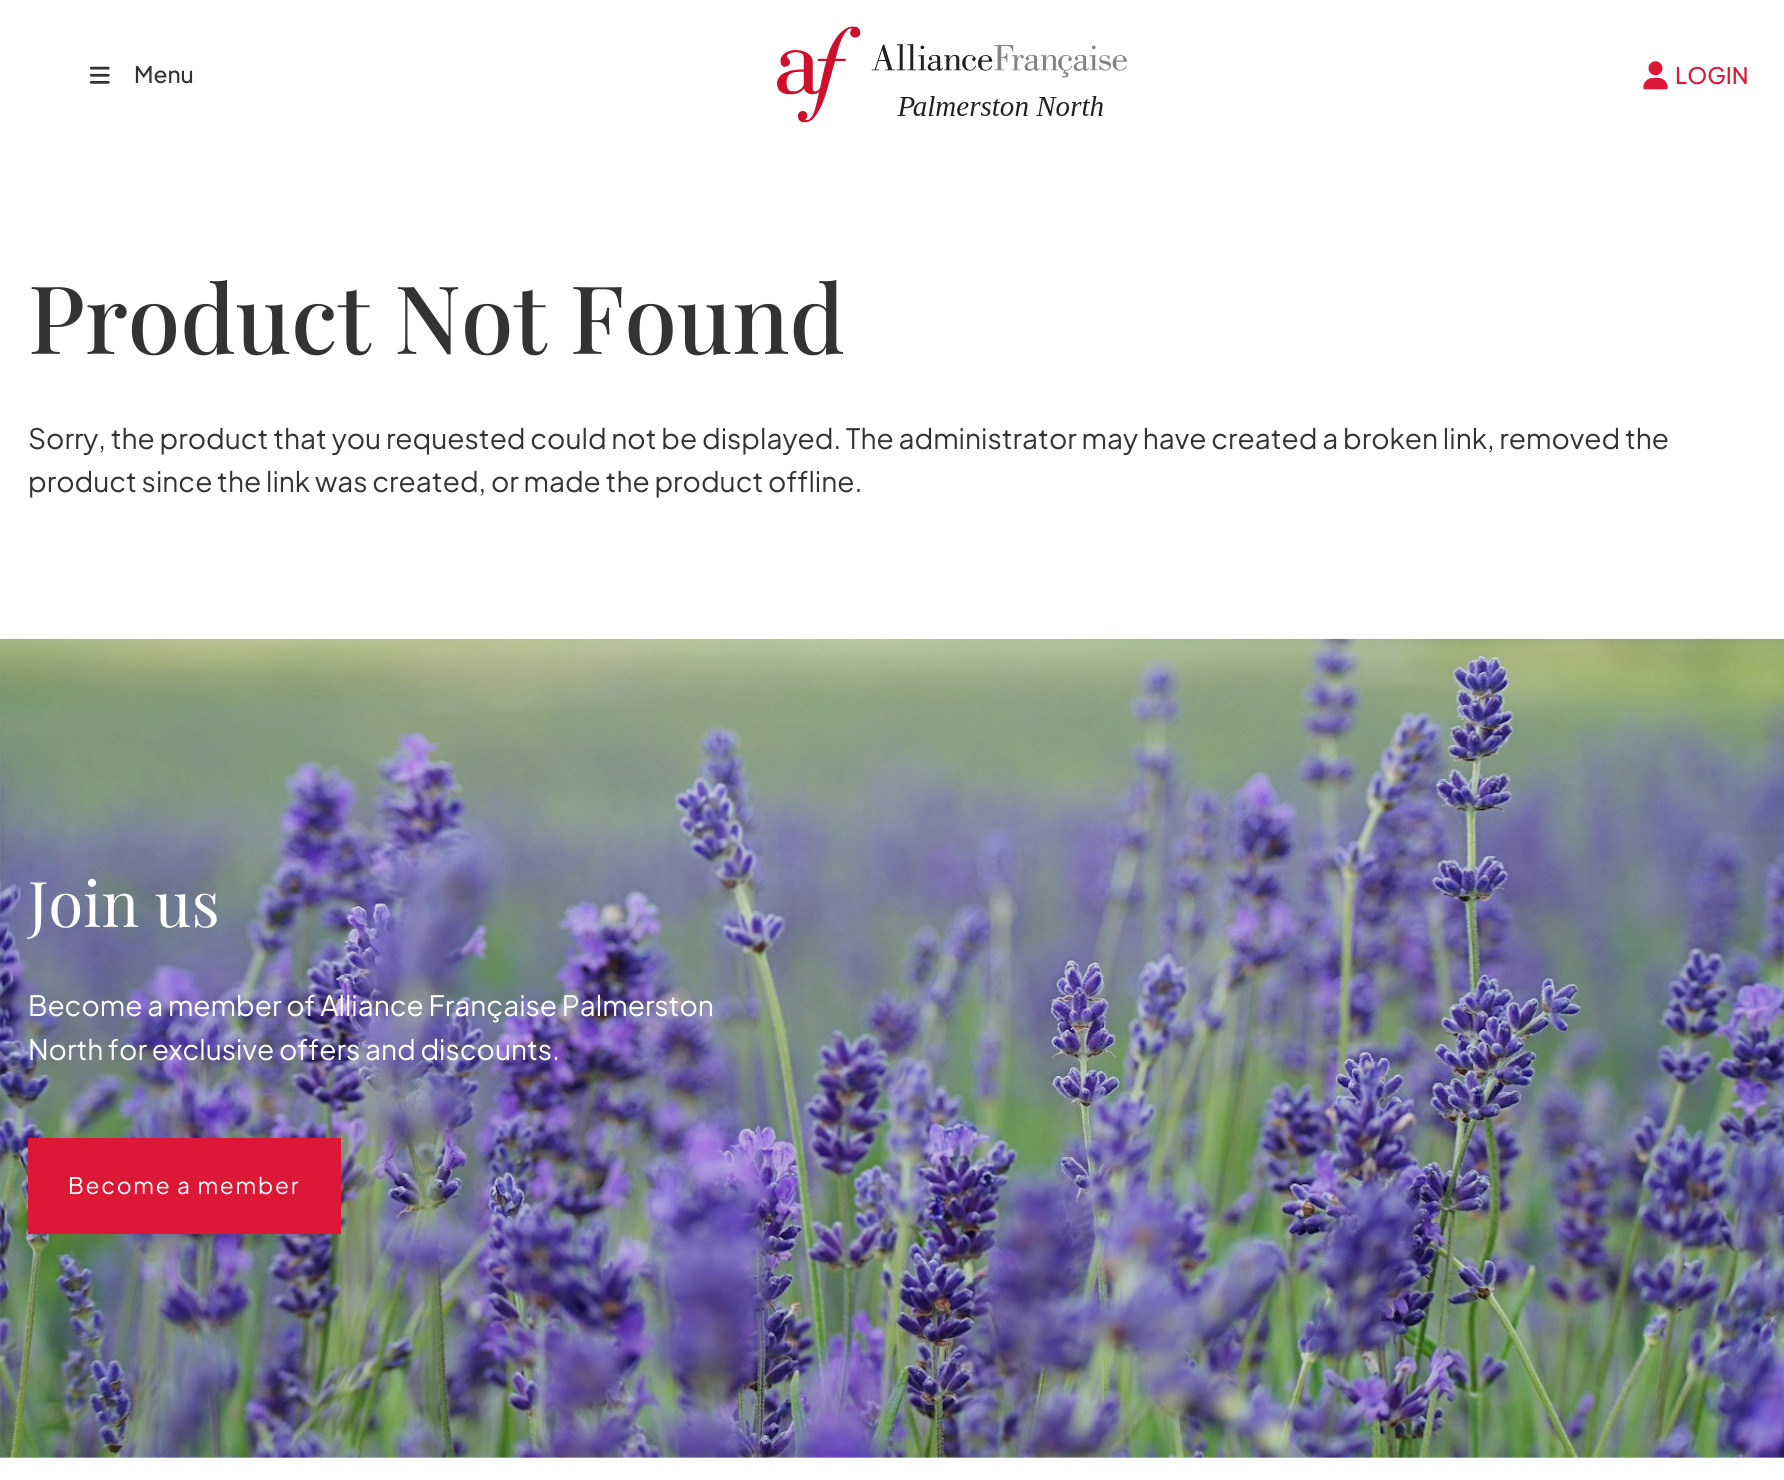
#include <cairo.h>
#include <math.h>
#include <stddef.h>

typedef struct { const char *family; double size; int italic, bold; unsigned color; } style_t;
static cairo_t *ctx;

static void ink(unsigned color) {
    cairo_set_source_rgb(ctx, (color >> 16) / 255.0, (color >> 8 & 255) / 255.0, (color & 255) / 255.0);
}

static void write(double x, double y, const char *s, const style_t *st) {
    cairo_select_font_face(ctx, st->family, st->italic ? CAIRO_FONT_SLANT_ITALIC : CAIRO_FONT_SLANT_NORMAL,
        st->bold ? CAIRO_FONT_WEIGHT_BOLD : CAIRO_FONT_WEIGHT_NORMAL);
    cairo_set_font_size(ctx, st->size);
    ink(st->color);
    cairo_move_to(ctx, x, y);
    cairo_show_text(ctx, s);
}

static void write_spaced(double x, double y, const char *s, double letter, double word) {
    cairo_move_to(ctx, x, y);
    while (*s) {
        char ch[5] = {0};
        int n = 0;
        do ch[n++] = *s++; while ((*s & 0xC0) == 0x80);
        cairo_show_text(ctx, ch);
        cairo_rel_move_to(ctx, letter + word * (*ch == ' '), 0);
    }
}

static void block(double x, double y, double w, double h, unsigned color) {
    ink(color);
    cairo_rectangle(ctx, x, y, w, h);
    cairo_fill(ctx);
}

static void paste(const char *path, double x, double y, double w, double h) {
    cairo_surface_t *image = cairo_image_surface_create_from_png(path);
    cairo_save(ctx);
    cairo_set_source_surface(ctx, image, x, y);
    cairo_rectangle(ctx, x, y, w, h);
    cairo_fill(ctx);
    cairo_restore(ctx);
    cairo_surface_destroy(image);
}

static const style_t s1 = {"Plus Jakarta Sans Medium", 22.75, 0, 0, 0x333333};
static const style_t s2 = {"Plus Jakarta Sans Medium", 22.75, 0, 0, 0xdc1836};
static const style_t s3 = {"Playfair Display Medium", 94.5, 0, 0, 0x333333};
static const style_t s4 = {"Plus Jakarta Sans", 28, 0, 0, 0x333333};
static const style_t s5 = {"Playfair Display", 63, 0, 0, 0xffffff};
static const style_t s6 = {"Plus Jakarta Sans", 28, 0, 0, 0xffffff};

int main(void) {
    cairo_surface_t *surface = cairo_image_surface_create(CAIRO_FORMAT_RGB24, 1784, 1480);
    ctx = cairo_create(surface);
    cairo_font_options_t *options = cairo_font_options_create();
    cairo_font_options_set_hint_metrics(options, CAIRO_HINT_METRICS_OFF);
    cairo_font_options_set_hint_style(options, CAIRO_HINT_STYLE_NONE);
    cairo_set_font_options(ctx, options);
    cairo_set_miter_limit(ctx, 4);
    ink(0xffffff);
    cairo_paint(ctx);
    block(0, 1457, 1784, 1, 0xe6e6e6);
    paste("pic1.png", 89, 66, 21, 18);
    write(134, 83, "Menu", &s1);
    paste("pic2.png", 777, 26, 350, 97);
    paste("pic3.png", 1643, 61, 25, 29);
    write(1675, 84, "LOGIN", &s2);
    write(28, 354, "Product Not Found", &s3);
    write(28, 449, "Sorry, the product that you requested could not be displayed. The administrator may have created a broken link, removed the", &s4);
    write(28, 492, "product since the link was created, or made the product offline.", &s4);
    paste("pic4.png", 0, 638, 1784, 820);
    write(28, 927, "Join us", &s5);
    write(28, 1016, "Become a member of Alliance Française Palmerston", &s6);
    write(28, 1060, "North for exclusive offers and discounts.", &s6);
    block(28, 1138, 313, 96, 0xdc1836);
    cairo_set_font_size(ctx, 22.75);
    ink(0xffffff);
    write_spaced(68, 1194, "Become a member", 1.75, 0);
    cairo_surface_write_to_png(surface, "screenshot.png");
    cairo_font_options_destroy(options);
    cairo_destroy(ctx);
    cairo_surface_destroy(surface);
    return 0;
}
